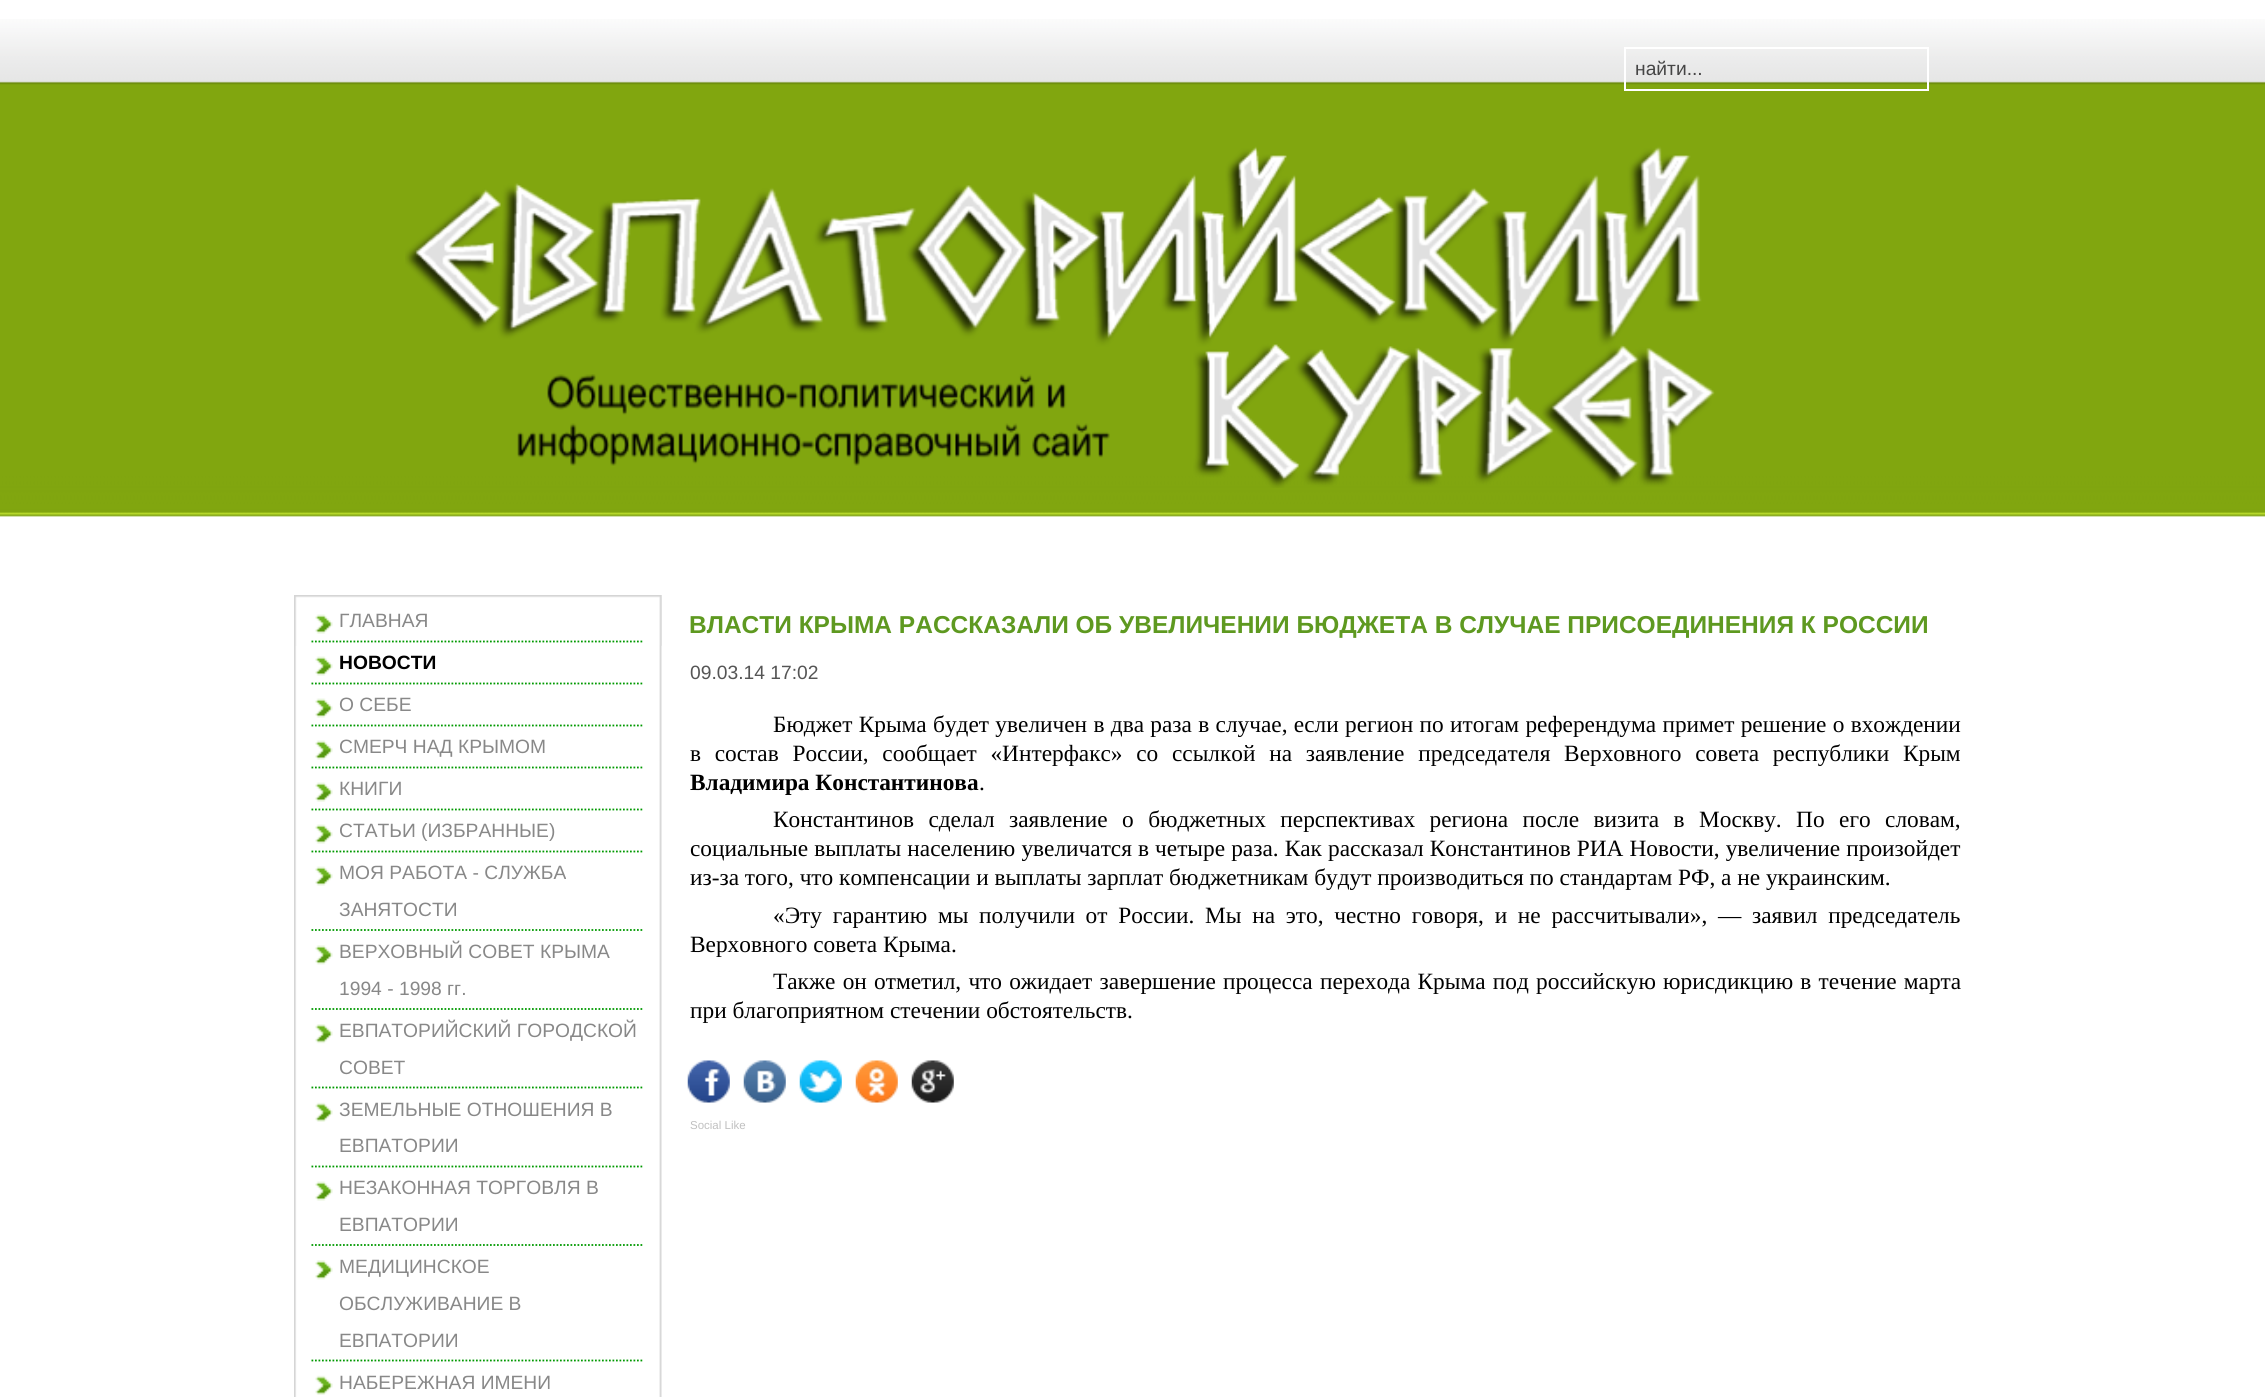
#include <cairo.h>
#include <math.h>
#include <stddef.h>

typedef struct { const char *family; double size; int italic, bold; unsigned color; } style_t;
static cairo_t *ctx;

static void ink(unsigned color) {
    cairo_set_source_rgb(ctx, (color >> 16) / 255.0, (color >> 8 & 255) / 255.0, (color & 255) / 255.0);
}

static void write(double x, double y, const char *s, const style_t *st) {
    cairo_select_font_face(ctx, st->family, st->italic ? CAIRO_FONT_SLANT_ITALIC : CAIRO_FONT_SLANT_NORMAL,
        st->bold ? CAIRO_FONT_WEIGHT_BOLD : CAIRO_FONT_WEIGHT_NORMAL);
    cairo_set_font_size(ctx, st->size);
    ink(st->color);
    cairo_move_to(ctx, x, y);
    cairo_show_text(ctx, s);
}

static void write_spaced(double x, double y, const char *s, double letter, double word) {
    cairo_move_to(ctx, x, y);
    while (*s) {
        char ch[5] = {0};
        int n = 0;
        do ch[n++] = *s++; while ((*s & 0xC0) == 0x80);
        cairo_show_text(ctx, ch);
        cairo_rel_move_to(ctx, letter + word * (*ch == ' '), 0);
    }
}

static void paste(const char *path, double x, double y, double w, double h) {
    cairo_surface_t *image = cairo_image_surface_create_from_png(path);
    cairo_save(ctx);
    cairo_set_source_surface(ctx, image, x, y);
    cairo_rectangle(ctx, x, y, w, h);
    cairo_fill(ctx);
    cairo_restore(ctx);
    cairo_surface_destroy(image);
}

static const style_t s1 = {"Liberation Sans", 19.25, 0, 0, 0x454545};
static const style_t s2 = {"Liberation Sans", 19.25, 0, 0, 0x888888};
static const style_t s3 = {"Liberation Sans", 19.25, 0, 1, 0x000000};
static const style_t s4 = {"Liberation Sans", 24.5, 0, 1, 0x5e9920};
static const style_t s5 = {"Liberation Sans", 19.25, 0, 0, 0x555555};
static const style_t s6 = {"Liberation Serif", 23.33, 0, 1, 0x000000};
static const style_t s7 = {"Liberation Serif", 23.33, 0, 0, 0x000000};
static const style_t s8 = {"Liberation Sans", 11.5, 0, 0, 0xc0c0c0};

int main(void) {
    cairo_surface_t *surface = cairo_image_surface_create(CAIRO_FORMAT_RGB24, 2265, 1397);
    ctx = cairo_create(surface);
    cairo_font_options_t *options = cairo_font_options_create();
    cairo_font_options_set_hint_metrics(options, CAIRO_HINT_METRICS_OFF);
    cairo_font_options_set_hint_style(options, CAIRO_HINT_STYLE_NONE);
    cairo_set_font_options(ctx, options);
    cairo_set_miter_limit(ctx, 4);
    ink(0xffffff);
    cairo_paint(ctx);
    paste("pic1.png", 0, 19, 2265, 498);
    cairo_rectangle(ctx, 1625, 48, 303, 42);
    ink(0xffffff);
    cairo_stroke(ctx);
    write(1635, 75, "найти...", &s1);
    paste("pic2.png", 405, 146, 1310, 342);
    paste("pic3.png", 294, 595, 368, 802);
    paste("pic4.png", 295, 595, 367, 51);
    paste("pic5.png", 315, 614, 18, 20);
    cairo_new_path(ctx);
    cairo_move_to(ctx, 311.5, 641.5);
    cairo_line_to(ctx, 644, 641.5);
    ink(0x009900);
    cairo_set_line_width(ctx, 1.8);
    cairo_set_dash(ctx, (double[]){1.75, 1.75}, 2, 0);
    cairo_stroke(ctx);
    write(339, 627, "ГЛАВНАЯ", &s2);
    paste("pic5.png", 315, 656, 18, 20);
    cairo_new_path(ctx);
    cairo_move_to(ctx, 311.5, 683.5);
    cairo_line_to(ctx, 644, 683.5);
    ink(0x009900);
    cairo_stroke(ctx);
    write(339, 669, "НОВОСТИ", &s3);
    paste("pic5.png", 315, 698, 18, 20);
    cairo_new_path(ctx);
    cairo_move_to(ctx, 311.5, 725.5);
    cairo_line_to(ctx, 644, 725.5);
    ink(0x009900);
    cairo_stroke(ctx);
    write(339, 711, "О СЕБЕ", &s2);
    paste("pic5.png", 315, 740, 18, 20);
    cairo_new_path(ctx);
    cairo_move_to(ctx, 311.5, 767.5);
    cairo_line_to(ctx, 644, 767.5);
    ink(0x009900);
    cairo_stroke(ctx);
    write(339, 753, "СМЕРЧ НАД КРЫМОМ", &s2);
    paste("pic5.png", 315, 782, 18, 20);
    cairo_new_path(ctx);
    cairo_move_to(ctx, 311.5, 809.5);
    cairo_line_to(ctx, 644, 809.5);
    ink(0x009900);
    cairo_stroke(ctx);
    write(339, 795, "КНИГИ", &s2);
    paste("pic5.png", 315, 824, 18, 20);
    cairo_new_path(ctx);
    cairo_move_to(ctx, 311.5, 851.5);
    cairo_line_to(ctx, 644, 851.5);
    ink(0x009900);
    cairo_stroke(ctx);
    write(339, 837, "СТАТЬИ (ИЗБРАННЫЕ)", &s2);
    paste("pic5.png", 315, 866, 18, 20);
    cairo_new_path(ctx);
    cairo_move_to(ctx, 311.5, 930);
    cairo_line_to(ctx, 644, 930);
    ink(0x009900);
    cairo_stroke(ctx);
    write(339, 879, "МОЯ РАБОТА - СЛУЖБА", &s2);
    write(339, 916, "ЗАНЯТОСТИ", &s2);
    paste("pic6.png", 315, 945, 18, 20);
    cairo_new_path(ctx);
    cairo_move_to(ctx, 311.5, 1009);
    cairo_line_to(ctx, 644, 1009);
    ink(0x009900);
    cairo_stroke(ctx);
    write(339, 958, "ВЕРХОВНЫЙ СОВЕТ КРЫМА", &s2);
    write(339, 995, "1994 - 1998 гг.", &s2);
    paste("pic7.png", 315, 1024, 18, 20);
    cairo_new_path(ctx);
    cairo_move_to(ctx, 311.5, 1087.5);
    cairo_line_to(ctx, 644, 1087.5);
    ink(0x009900);
    cairo_stroke(ctx);
    write(339, 1037, "ЕВПАТОРИЙСКИЙ ГОРОДСКОЙ", &s2);
    write(339, 1074, "СОВЕТ", &s2);
    paste("pic8.png", 315, 1102, 18, 20);
    cairo_new_path(ctx);
    cairo_move_to(ctx, 311.5, 1166.5);
    cairo_line_to(ctx, 644, 1166.5);
    ink(0x009900);
    cairo_stroke(ctx);
    write(339, 1116, "ЗЕМЕЛЬНЫЕ ОТНОШЕНИЯ В", &s2);
    write(339, 1152, "ЕВПАТОРИИ", &s2);
    paste("pic5.png", 315, 1181, 18, 20);
    cairo_new_path(ctx);
    cairo_move_to(ctx, 311.5, 1245);
    cairo_line_to(ctx, 644, 1245);
    ink(0x009900);
    cairo_stroke(ctx);
    write(339, 1194, "НЕЗАКОННАЯ ТОРГОВЛЯ В", &s2);
    write(339, 1231, "ЕВПАТОРИИ", &s2);
    paste("pic6.png", 315, 1260, 18, 20);
    cairo_new_path(ctx);
    cairo_move_to(ctx, 311.5, 1360.5);
    cairo_line_to(ctx, 644, 1360.5);
    ink(0x009900);
    cairo_stroke(ctx);
    write(339, 1273, "МЕДИЦИНСКОЕ", &s2);
    write(339, 1310, "ОБСЛУЖИВАНИЕ В", &s2);
    write(339, 1347, "ЕВПАТОРИИ", &s2);
    paste("pic8.png", 315, 1375, 18, 20);
    write(339, 1389, "НАБЕРЕЖНАЯ ИМЕНИ", &s2);
    write(689, 633, "ВЛАСТИ КРЫМА РАССКАЗАЛИ ОБ УВЕЛИЧЕНИИ БЮДЖЕТА В СЛУЧАЕ ПРИСОЕДИНЕНИЯ К РОССИИ", &s4);
    write(690, 679, "09.03.14 17:02", &s5);
    cairo_select_font_face(ctx, "Liberation Serif", CAIRO_FONT_SLANT_NORMAL, CAIRO_FONT_WEIGHT_NORMAL);
    cairo_set_font_size(ctx, 23.33);
    ink(0x000000);
    write_spaced(773, 732, "Бюджет Крыма будет увеличен в два раза в случае, если регион по итогам референдума примет решение о вхождении", 0, 0.5);
    write_spaced(690, 761, "в состав России, сообщает «Интерфакс» со ссылкой на заявление председателя Верховного совета республики Крым", 0, 7.9);
    write(690, 790, "Владимира Константинова", &s6);
    write(979, 790, ".", &s7);
    write_spaced(773, 827, "Константинов сделал заявление о бюджетных перспективах региона после визита в Москву. По его словам,", 0, 8.6);
    write_spaced(690, 856, "социальные выплаты населению увеличатся в четыре раза. Как рассказал Константинов РИА Новости, увеличение произойдет", 0, 0.25);
    write(690, 885, "из-за того, что компенсации и выплаты зарплат бюджетникам будут производиться по стандартам РФ, а не украинским.", &s7);
    write_spaced(773, 923, "«Эту гарантию мы получили от России. Мы на это, честно говоря, и не рассчитывали», — заявил председатель", 0, 4.9);
    write(690, 952, "Верховного совета Крыма.", &s7);
    write_spaced(773, 989, "Также он отметил, что ожидает завершение процесса перехода Крыма под российскую юрисдикцию в течение марта", 0, 1.4);
    write(690, 1018, "при благоприятном стечении обстоятельств.", &s7);
    paste("pic9.png", 687, 1060, 43, 43);
    paste("pic10.png", 743, 1060, 43, 43);
    paste("pic11.png", 799, 1060, 43, 43);
    paste("pic12.png", 855, 1060, 43, 43);
    paste("pic13.png", 911, 1060, 43, 43);
    write(690, 1129, "Social Like", &s8);
    cairo_surface_write_to_png(surface, "screenshot.png");
    cairo_font_options_destroy(options);
    cairo_destroy(ctx);
    cairo_surface_destroy(surface);
    return 0;
}
